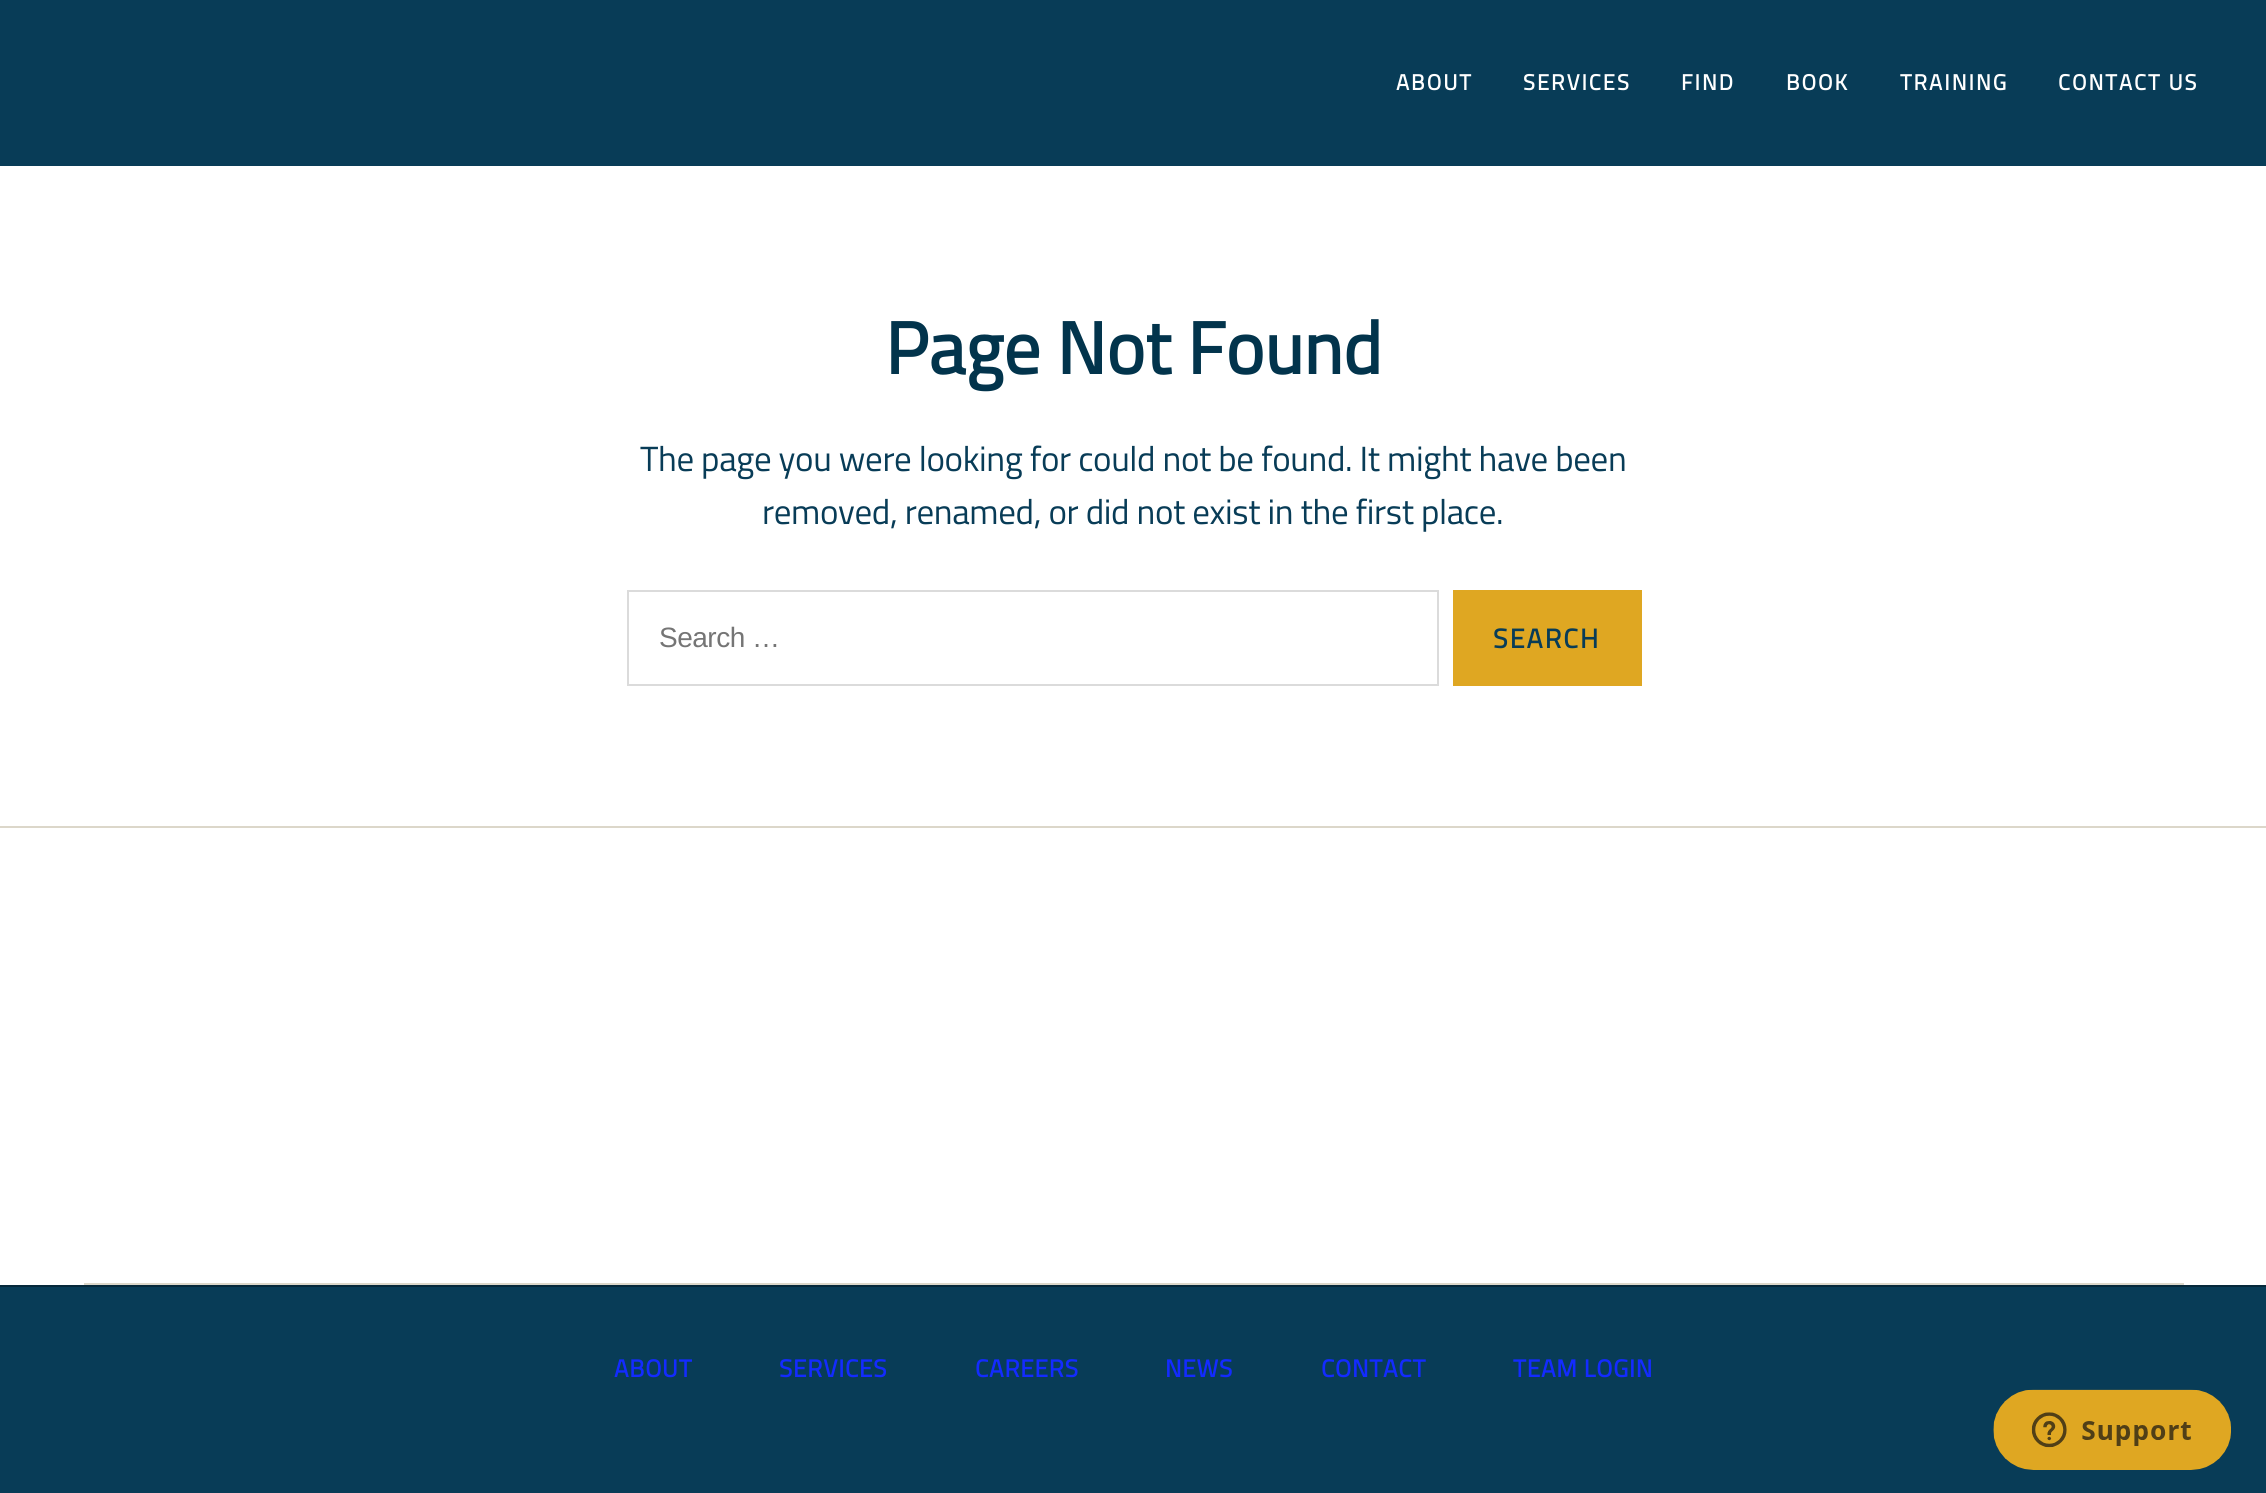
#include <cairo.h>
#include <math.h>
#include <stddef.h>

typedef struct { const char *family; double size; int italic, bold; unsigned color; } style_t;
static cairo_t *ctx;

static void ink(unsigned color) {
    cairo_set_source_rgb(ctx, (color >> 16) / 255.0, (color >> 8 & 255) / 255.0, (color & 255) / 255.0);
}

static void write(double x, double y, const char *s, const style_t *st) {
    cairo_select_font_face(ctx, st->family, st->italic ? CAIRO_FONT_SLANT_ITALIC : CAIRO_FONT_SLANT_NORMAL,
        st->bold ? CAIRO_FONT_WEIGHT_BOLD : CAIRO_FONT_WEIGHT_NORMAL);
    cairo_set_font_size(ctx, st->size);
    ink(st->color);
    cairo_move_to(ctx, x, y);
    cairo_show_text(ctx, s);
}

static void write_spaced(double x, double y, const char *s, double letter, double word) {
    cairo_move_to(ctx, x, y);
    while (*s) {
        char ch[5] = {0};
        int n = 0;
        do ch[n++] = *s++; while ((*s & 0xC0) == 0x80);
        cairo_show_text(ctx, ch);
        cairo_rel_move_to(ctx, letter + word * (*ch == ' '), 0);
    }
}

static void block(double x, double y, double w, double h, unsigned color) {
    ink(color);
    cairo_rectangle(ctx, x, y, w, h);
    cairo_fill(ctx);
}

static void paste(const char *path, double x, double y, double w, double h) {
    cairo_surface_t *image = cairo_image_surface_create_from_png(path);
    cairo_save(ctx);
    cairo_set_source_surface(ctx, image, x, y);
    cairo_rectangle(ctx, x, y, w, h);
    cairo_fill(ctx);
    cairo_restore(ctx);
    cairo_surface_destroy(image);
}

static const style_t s1 = {"Titillium Web", 73.5, 0, 1, 0x02344c};

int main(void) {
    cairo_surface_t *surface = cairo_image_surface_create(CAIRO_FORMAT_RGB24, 2266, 1493);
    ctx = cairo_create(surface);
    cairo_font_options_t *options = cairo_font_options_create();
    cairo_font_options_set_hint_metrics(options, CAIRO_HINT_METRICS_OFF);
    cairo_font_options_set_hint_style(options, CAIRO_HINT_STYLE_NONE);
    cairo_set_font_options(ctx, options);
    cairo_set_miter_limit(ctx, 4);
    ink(0xffffff);
    cairo_paint(ctx);
    block(0, 0, 2266, 166, 0x083c57);
    cairo_select_font_face(ctx, "Titillium Web", CAIRO_FONT_SLANT_NORMAL, CAIRO_FONT_WEIGHT_BOLD);
    cairo_set_font_size(ctx, 22);
    ink(0xffffff);
    write_spaced(1396, 90, "ABOUT", 2, 0);
    write_spaced(1523, 90, "SERVICES", 2, 0);
    write_spaced(1681, 90, "FIND", 2, 0);
    write_spaced(1786, 90, "BOOK", 2, 0);
    write_spaced(1900, 90, "TRAINING", 2, 0);
    write_spaced(2058, 90, "CONTACT US", 2, 0);
    write(885, 374, "Page Not Found", &s1);
    cairo_select_font_face(ctx, "Titillium Web", CAIRO_FONT_SLANT_NORMAL, CAIRO_FONT_WEIGHT_NORMAL);
    cairo_set_font_size(ctx, 35);
    ink(0x083c57);
    write_spaced(640, 471, "The page you were looking for could not be found. It might have been", -0.37, 0);
    write_spaced(762, 524, "removed, renamed, or did not exist in the first place.", -0.37, 0);
    cairo_rectangle(ctx, 628, 591, 810, 94);
    ink(0xdbdbdb);
    cairo_stroke(ctx);
    cairo_select_font_face(ctx, "Liberation Sans", CAIRO_FONT_SLANT_NORMAL, CAIRO_FONT_WEIGHT_NORMAL);
    cairo_set_font_size(ctx, 28);
    ink(0x757575);
    write_spaced(659, 647, "Search …", -0.5, 0);
    block(1453, 590, 189, 96, 0xdfa722);
    cairo_select_font_face(ctx, "Titillium Web", CAIRO_FONT_SLANT_NORMAL, CAIRO_FONT_WEIGHT_BOLD);
    cairo_set_font_size(ctx, 27);
    ink(0x083c57);
    write_spaced(1493, 648, "SEARCH", 2, 0);
    block(0, 826, 2266, 2, 0xdcd7ca);
    block(84, 1283, 2100, 2, 0xdcd7ca);
    block(0, 1287, 2266, 206, 0x083c57);
    block(0, 1285, 2266, 2, 0x06293b);
    cairo_set_font_size(ctx, 24.5);
    ink(0x132bff);
    write_spaced(614, 1377, "ABOUT", 0.75, 0);
    write_spaced(779, 1377, "SERVICES", 0.75, 0);
    write_spaced(975, 1377, "CAREERS", 0.75, 0);
    write_spaced(1165, 1377, "NEWS", 0.75, 0);
    write_spaced(1321, 1377, "CONTACT", 0.75, 0);
    write_spaced(1513, 1377, "TEAM LOGIN", 0.75, 0);
    paste("pic1.png", 1993, 1389, 238, 81);
    cairo_surface_write_to_png(surface, "screenshot.png");
    cairo_font_options_destroy(options);
    cairo_destroy(ctx);
    cairo_surface_destroy(surface);
    return 0;
}
